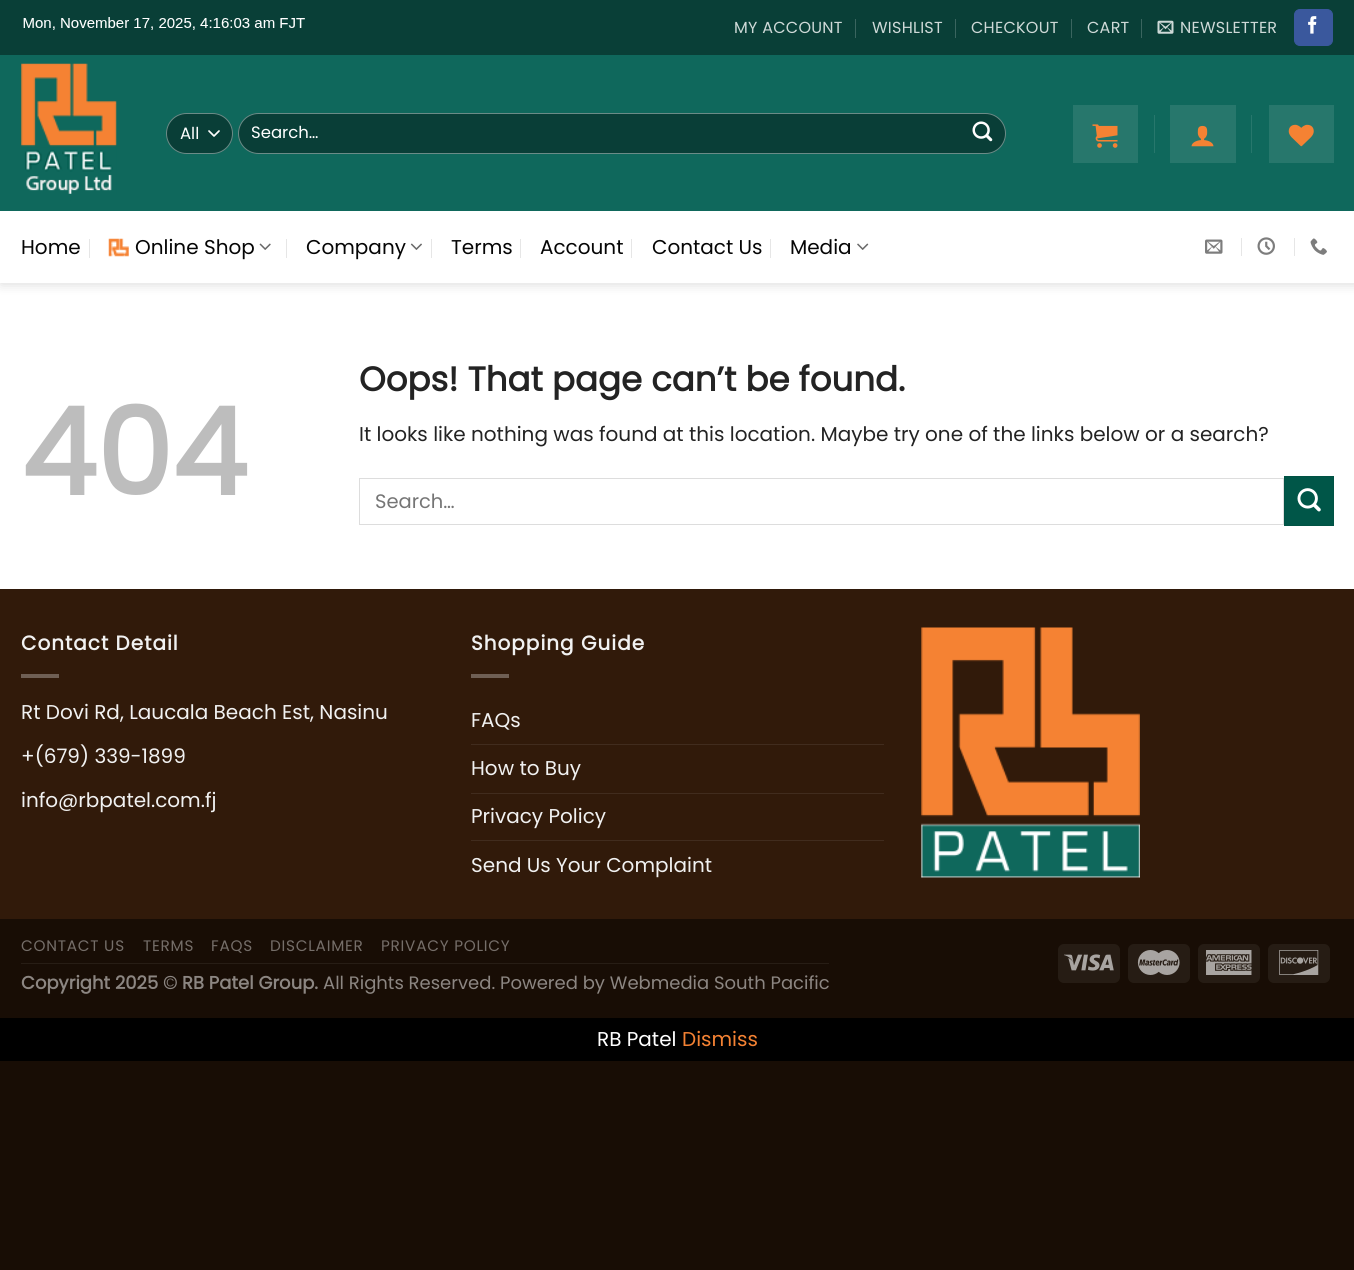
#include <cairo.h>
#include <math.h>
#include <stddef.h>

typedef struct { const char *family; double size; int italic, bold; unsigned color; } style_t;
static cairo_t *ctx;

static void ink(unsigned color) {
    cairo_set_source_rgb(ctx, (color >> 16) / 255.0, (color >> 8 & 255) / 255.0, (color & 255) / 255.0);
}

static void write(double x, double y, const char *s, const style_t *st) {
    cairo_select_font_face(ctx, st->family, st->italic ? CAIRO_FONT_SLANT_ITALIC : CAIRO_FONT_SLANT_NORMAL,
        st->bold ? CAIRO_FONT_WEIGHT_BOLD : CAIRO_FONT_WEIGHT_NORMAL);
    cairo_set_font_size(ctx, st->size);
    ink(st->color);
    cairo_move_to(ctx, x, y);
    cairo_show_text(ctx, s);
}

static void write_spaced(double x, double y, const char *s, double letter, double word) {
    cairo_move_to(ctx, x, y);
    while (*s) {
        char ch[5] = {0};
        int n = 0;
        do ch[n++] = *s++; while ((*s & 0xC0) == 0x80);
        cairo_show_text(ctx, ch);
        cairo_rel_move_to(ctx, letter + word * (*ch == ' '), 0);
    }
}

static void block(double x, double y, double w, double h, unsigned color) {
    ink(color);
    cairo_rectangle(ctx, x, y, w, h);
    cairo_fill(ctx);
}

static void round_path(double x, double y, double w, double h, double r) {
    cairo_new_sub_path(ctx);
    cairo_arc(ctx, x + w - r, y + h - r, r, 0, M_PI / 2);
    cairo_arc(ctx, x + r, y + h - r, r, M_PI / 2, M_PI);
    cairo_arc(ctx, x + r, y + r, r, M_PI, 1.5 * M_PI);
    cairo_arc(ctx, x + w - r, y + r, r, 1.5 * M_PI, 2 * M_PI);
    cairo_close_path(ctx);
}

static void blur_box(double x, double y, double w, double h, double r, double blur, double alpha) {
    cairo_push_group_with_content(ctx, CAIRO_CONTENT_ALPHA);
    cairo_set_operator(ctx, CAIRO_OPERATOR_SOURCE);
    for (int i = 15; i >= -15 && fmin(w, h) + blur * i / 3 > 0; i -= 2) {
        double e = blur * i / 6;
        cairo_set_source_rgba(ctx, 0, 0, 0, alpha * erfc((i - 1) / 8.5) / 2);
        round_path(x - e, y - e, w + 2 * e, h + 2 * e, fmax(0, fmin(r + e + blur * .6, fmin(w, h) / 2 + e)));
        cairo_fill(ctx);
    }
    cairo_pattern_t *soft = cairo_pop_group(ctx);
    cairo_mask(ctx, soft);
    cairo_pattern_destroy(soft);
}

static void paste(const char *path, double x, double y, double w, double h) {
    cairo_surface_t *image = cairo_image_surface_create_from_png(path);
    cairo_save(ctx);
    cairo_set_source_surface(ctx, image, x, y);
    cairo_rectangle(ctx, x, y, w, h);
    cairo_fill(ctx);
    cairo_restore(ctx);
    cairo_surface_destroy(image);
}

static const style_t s1 = {"Poppins", 16.5, 0, 0, 0xffffff};
static const style_t s2 = {"Poppins", 20, 0, 0, 0x050505};
static const style_t s3 = {"Poppins", 120, 0, 1, 0xbdbdbd};
static const style_t s4 = {"Poppins", 34, 0, 1, 0x232323};
static const style_t s5 = {"Poppins", 20, 0, 0, 0x232323};
static const style_t s6 = {"Poppins", 19.5, 0, 0, 0x757575};
static const style_t s7 = {"Poppins", 20, 0, 0, 0xf1f1f1};
static const style_t s8 = {"Poppins", 18, 0, 1, 0x8c8682};
static const style_t s9 = {"Poppins", 18, 0, 0, 0x8c8682};
static const style_t s10 = {"Poppins", 20, 0, 0, 0xffffff};
static const style_t s11 = {"Poppins", 20, 0, 0, 0xf58233};

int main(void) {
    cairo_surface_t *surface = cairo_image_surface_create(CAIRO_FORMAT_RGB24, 1354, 1270);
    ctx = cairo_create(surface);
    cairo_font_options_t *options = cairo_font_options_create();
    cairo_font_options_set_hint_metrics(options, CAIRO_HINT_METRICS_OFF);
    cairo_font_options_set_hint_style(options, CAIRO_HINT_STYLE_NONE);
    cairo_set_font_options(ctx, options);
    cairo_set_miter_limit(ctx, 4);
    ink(0x180d05);
    cairo_paint(ctx);
    block(0, 283, 1354, 306, 0xffffff);
    ink(0x000000);
    blur_box(1, 1, 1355, 283, 0, 6, 0.15);
    block(0, 55, 1354, 156, 0x0f685c);
    block(0, 0, 1354, 55, 0x093f37);
    paste("pic1.png", 23, 17, 282, 13);
    cairo_select_font_face(ctx, "Poppins", CAIRO_FONT_SLANT_NORMAL, CAIRO_FONT_WEIGHT_NORMAL);
    cairo_set_font_size(ctx, 16);
    ink(0xced9d7);
    write_spaced(734, 33, "MY ACCOUNT", 0.25, 0);
    block(855, 19, 1, 19, 0x3a655f);
    ink(0xced9d7);
    write_spaced(872, 33, "WISHLIST", 0.25, 0);
    block(955, 19, 1, 19, 0x3a655f);
    ink(0xced9d7);
    write_spaced(971, 33, "CHECKOUT", 0.25, 0);
    block(1071, 19, 1, 19, 0x3a655f);
    ink(0xced9d7);
    write_spaced(1087, 33, "CART", 0.25, 0);
    block(1141, 19, 1, 19, 0x3a655f);
    paste("pic2.png", 1157, 20, 17, 14);
    ink(0xced9d7);
    write_spaced(1180, 33, "NEWSLETTER", 0.25, 0);
    ink(0x3a589d);
    round_path(1294.5, 9.5, 38, 36, 5.5);
    cairo_fill_preserve(ctx);
    cairo_set_line_width(ctx, 1);
    cairo_stroke(ctx);
    paste("pic3.png", 1308, 16, 9, 18);
    paste("pic4.png", 21, 63, 96, 131);
    ink(0x093e37);
    round_path(166, 113, 67, 41, 20.5);
    cairo_fill(ctx);
    cairo_new_path(ctx);
    cairo_move_to(ctx, 209, 131);
    cairo_line_to(ctx, 214, 136);
    cairo_line_to(ctx, 219, 131);
    ink(0xffffff);
    cairo_set_line_width(ctx, 1.7);
    cairo_set_line_cap(ctx, CAIRO_LINE_CAP_ROUND);
    cairo_set_line_join(ctx, CAIRO_LINE_JOIN_ROUND);
    cairo_stroke(ctx);
    round_path(166.5, 113.5, 66, 40, 20);
    cairo_set_source_rgba(ctx, 1, 1, 1, 0.4);
    cairo_set_line_width(ctx, 1);
    cairo_set_line_cap(ctx, CAIRO_LINE_CAP_BUTT);
    cairo_set_line_join(ctx, CAIRO_LINE_JOIN_MITER);
    cairo_stroke(ctx);
    write(180, 139, "All", &s1);
    ink(0x093e37);
    round_path(238, 113, 768, 41, 20.5);
    cairo_fill(ctx);
    round_path(238.5, 113.5, 767, 40, 20);
    cairo_set_source_rgba(ctx, 1, 1, 1, 0.4);
    cairo_stroke(ctx);
    write(251, 138, "Search…", &s1);
    paste("pic5.png", 972, 121, 21, 21);
    block(1073, 105, 65, 58, 0x27776c);
    paste("pic6.png", 1092, 124, 26, 24);
    block(1154, 115, 1, 38, 0x27776c);
    block(1170, 105, 66, 58, 0x27776c);
    paste("pic7.png", 1191, 125, 23, 22);
    block(1251, 115, 1, 38, 0x27776c);
    block(1269, 105, 65, 58, 0x27776c);
    paste("pic8.png", 1288, 124, 26, 23);
    block(0, 211, 1354, 72, 0xffffff);
    write(21, 254, "Home", &s2);
    block(89, 239, 1, 19, 0xe6e6e6);
    paste("pic9.png", 108, 238, 21, 19);
    write(135, 254, "Online Shop", &s2);
    paste("pic10.png", 259, 243, 12, 7);
    block(286, 239, 1, 19, 0xe6e6e6);
    write(306, 254, "Company", &s2);
    paste("pic11.png", 410, 243, 12, 7);
    block(431, 239, 1, 19, 0xe6e6e6);
    write(451, 254, "Terms", &s2);
    block(520, 239, 1, 19, 0xe6e6e6);
    write(540, 254, "Account", &s2);
    block(631, 239, 1, 19, 0xe6e6e6);
    write(652, 254, "Contact Us", &s2);
    block(770, 239, 1, 19, 0xe6e6e6);
    write(790, 254, "Media", &s2);
    paste("pic12.png", 857, 243, 12, 7);
    paste("pic13.png", 1205, 239, 18, 15);
    block(1241, 238, 1, 18, 0xe6e6e6);
    paste("pic14.png", 1257, 237, 18, 18);
    block(1294, 238, 1, 18, 0xe6e6e6);
    paste("pic15.png", 1310, 238, 17, 17);
    write(21, 495, "404", &s3);
    write(359, 391, "Oops! That page can’t be found.", &s4);
    write(359, 441, "It looks like nothing was found at this location. Maybe try one of the links below or a search?", &s5);
    cairo_rectangle(ctx, 359.5, 478.5, 924, 46);
    ink(0xdddddd);
    cairo_stroke(ctx);
    write(375, 508, "Search…", &s6);
    ink(0x005648);
    cairo_rectangle(ctx, 1284.5, 476.5, 49, 49);
    cairo_fill_preserve(ctx);
    ink(0x005244);
    cairo_stroke(ctx);
    paste("pic16.png", 1297, 488, 24, 24);
    block(0, 590, 1354, 329, 0x311a0a);
    block(0, 589, 1354, 1, 0x2f190a);
    cairo_select_font_face(ctx, "Poppins", CAIRO_FONT_SLANT_NORMAL, CAIRO_FONT_WEIGHT_BOLD);
    cairo_set_font_size(ctx, 20);
    ink(0xf1f1f1);
    write_spaced(21, 650, "Contact Detail", 1, 0);
    block(21, 674, 38, 4, 0x6f5f54);
    write(21, 719, "Rt Dovi Rd, Laucala Beach Est, Nasinu", &s7);
    write(21, 763, "+(679) 339-1899", &s7);
    write(21, 807, "info@rbpatel.com.fj", &s7);
    cairo_select_font_face(ctx, "Poppins", CAIRO_FONT_SLANT_NORMAL, CAIRO_FONT_WEIGHT_BOLD);
    write_spaced(471, 650, "Shopping Guide", 1, 0);
    block(471, 674, 38, 4, 0x6f5f54);
    write(471, 727, "FAQs", &s7);
    block(471, 744, 413, 1, 0x412c1e);
    write(471, 775, "How to Buy", &s7);
    block(471, 793, 413, 1, 0x412c1e);
    write(471, 823, "Privacy Policy", &s7);
    block(471, 840, 413, 1, 0x412c1e);
    write(471, 872, "Send Us Your Complaint", &s7);
    paste("pic17.png", 921, 627, 219, 251);
    block(21, 963, 808, 1, 0x271d15);
    cairo_set_font_size(ctx, 15.25);
    ink(0x756e69);
    write_spaced(21, 951, "CONTACT US", 0.75, 0);
    write_spaced(143, 951, "TERMS", 0.75, 0);
    write_spaced(211, 951, "FAQS", 0.75, 0);
    write_spaced(270, 951, "DISCLAIMER", 0.75, 0);
    write_spaced(381, 951, "PRIVACY POLICY", 0.75, 0);
    write(21, 989, "Copyright 2025 © RB Patel Group.", &s8);
    write(323, 989, "All Rights Reserved. Powered by Webmedia South Pacific", &s9);
    ink(0x261c14);
    round_path(1058, 944, 62, 39, 6);
    cairo_fill(ctx);
    paste("pic18.png", 1064, 954, 50, 17);
    round_path(1128, 944, 62, 39, 6);
    cairo_fill(ctx);
    paste("pic19.png", 1137, 950, 43, 25);
    round_path(1198, 944, 62, 39, 6);
    cairo_fill(ctx);
    paste("pic20.png", 1206, 950, 46, 25);
    round_path(1268, 944, 62, 39, 6);
    cairo_fill(ctx);
    paste("pic21.png", 1279, 950, 40, 25);
    block(0, 1018, 1354, 43, 0x000000);
    write(597, 1046, "RB Patel", &s10);
    write(682, 1046, "Dismiss", &s11);
    cairo_surface_write_to_png(surface, "screenshot.png");
    cairo_font_options_destroy(options);
    cairo_destroy(ctx);
    cairo_surface_destroy(surface);
    return 0;
}
